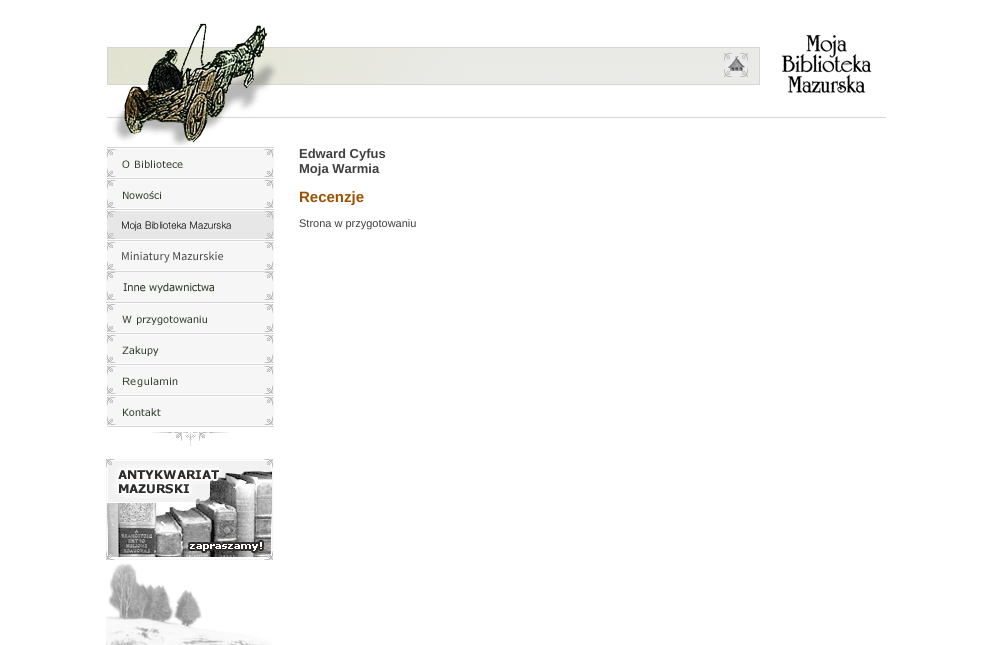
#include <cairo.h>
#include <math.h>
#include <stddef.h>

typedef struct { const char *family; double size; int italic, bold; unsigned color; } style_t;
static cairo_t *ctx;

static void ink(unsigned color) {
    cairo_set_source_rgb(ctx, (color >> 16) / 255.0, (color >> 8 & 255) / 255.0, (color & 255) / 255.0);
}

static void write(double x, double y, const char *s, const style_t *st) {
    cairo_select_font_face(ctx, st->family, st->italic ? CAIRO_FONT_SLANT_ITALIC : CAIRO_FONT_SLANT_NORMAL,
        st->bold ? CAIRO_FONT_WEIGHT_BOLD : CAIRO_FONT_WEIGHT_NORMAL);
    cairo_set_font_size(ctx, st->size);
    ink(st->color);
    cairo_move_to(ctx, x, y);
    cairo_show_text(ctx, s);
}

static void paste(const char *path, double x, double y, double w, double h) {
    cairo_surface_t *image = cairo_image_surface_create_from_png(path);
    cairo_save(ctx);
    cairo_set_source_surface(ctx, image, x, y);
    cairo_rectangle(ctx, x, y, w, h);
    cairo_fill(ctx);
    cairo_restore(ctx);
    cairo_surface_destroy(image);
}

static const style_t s1 = {"Liberation Sans", 13, 0, 1, 0x3f3f3f};
static const style_t s2 = {"Liberation Sans", 15, 0, 1, 0x9f4f00};
static const style_t s3 = {"Liberation Sans", 11, 0, 0, 0x3f3f3f};

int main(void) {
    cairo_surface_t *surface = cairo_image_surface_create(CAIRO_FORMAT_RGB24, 992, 645);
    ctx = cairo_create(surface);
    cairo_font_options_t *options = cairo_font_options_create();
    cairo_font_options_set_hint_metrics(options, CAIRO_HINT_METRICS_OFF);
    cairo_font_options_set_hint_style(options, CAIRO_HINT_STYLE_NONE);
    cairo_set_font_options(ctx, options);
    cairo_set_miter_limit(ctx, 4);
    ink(0xffffff);
    cairo_paint(ctx);
    paste("pic1.png", 107, 23, 173, 123);
    paste("pic2.png", 280, 47, 187, 71);
    paste("pic3.png", 467, 47, 291, 71);
    paste("pic4.png", 724, 53, 24, 24);
    paste("pic5.png", 758, 35, 128, 83);
    paste("pic6.png", 107, 147, 167, 32);
    paste("pic7.png", 107, 180, 167, 30);
    paste("pic8.png", 107, 211, 167, 30);
    paste("pic9.png", 107, 242, 167, 30);
    paste("pic10.png", 106, 272, 168, 31);
    paste("pic11.png", 107, 304, 167, 30);
    paste("pic12.png", 107, 335, 167, 30);
    paste("pic13.png", 107, 366, 167, 30);
    paste("pic14.png", 107, 397, 167, 30);
    paste("pic15.png", 152, 432, 77, 14);
    paste("pic16.png", 106, 459, 167, 101);
    paste("pic17.png", 106, 563, 166, 82);
    write(299, 158, "Edward Cyfus", &s1);
    write(299, 173, "Moja Warmia", &s1);
    write(299, 202, "Recenzje", &s2);
    write(299, 227, "Strona w przygotowaniu", &s3);
    cairo_surface_write_to_png(surface, "screenshot.png");
    cairo_font_options_destroy(options);
    cairo_destroy(ctx);
    cairo_surface_destroy(surface);
    return 0;
}
